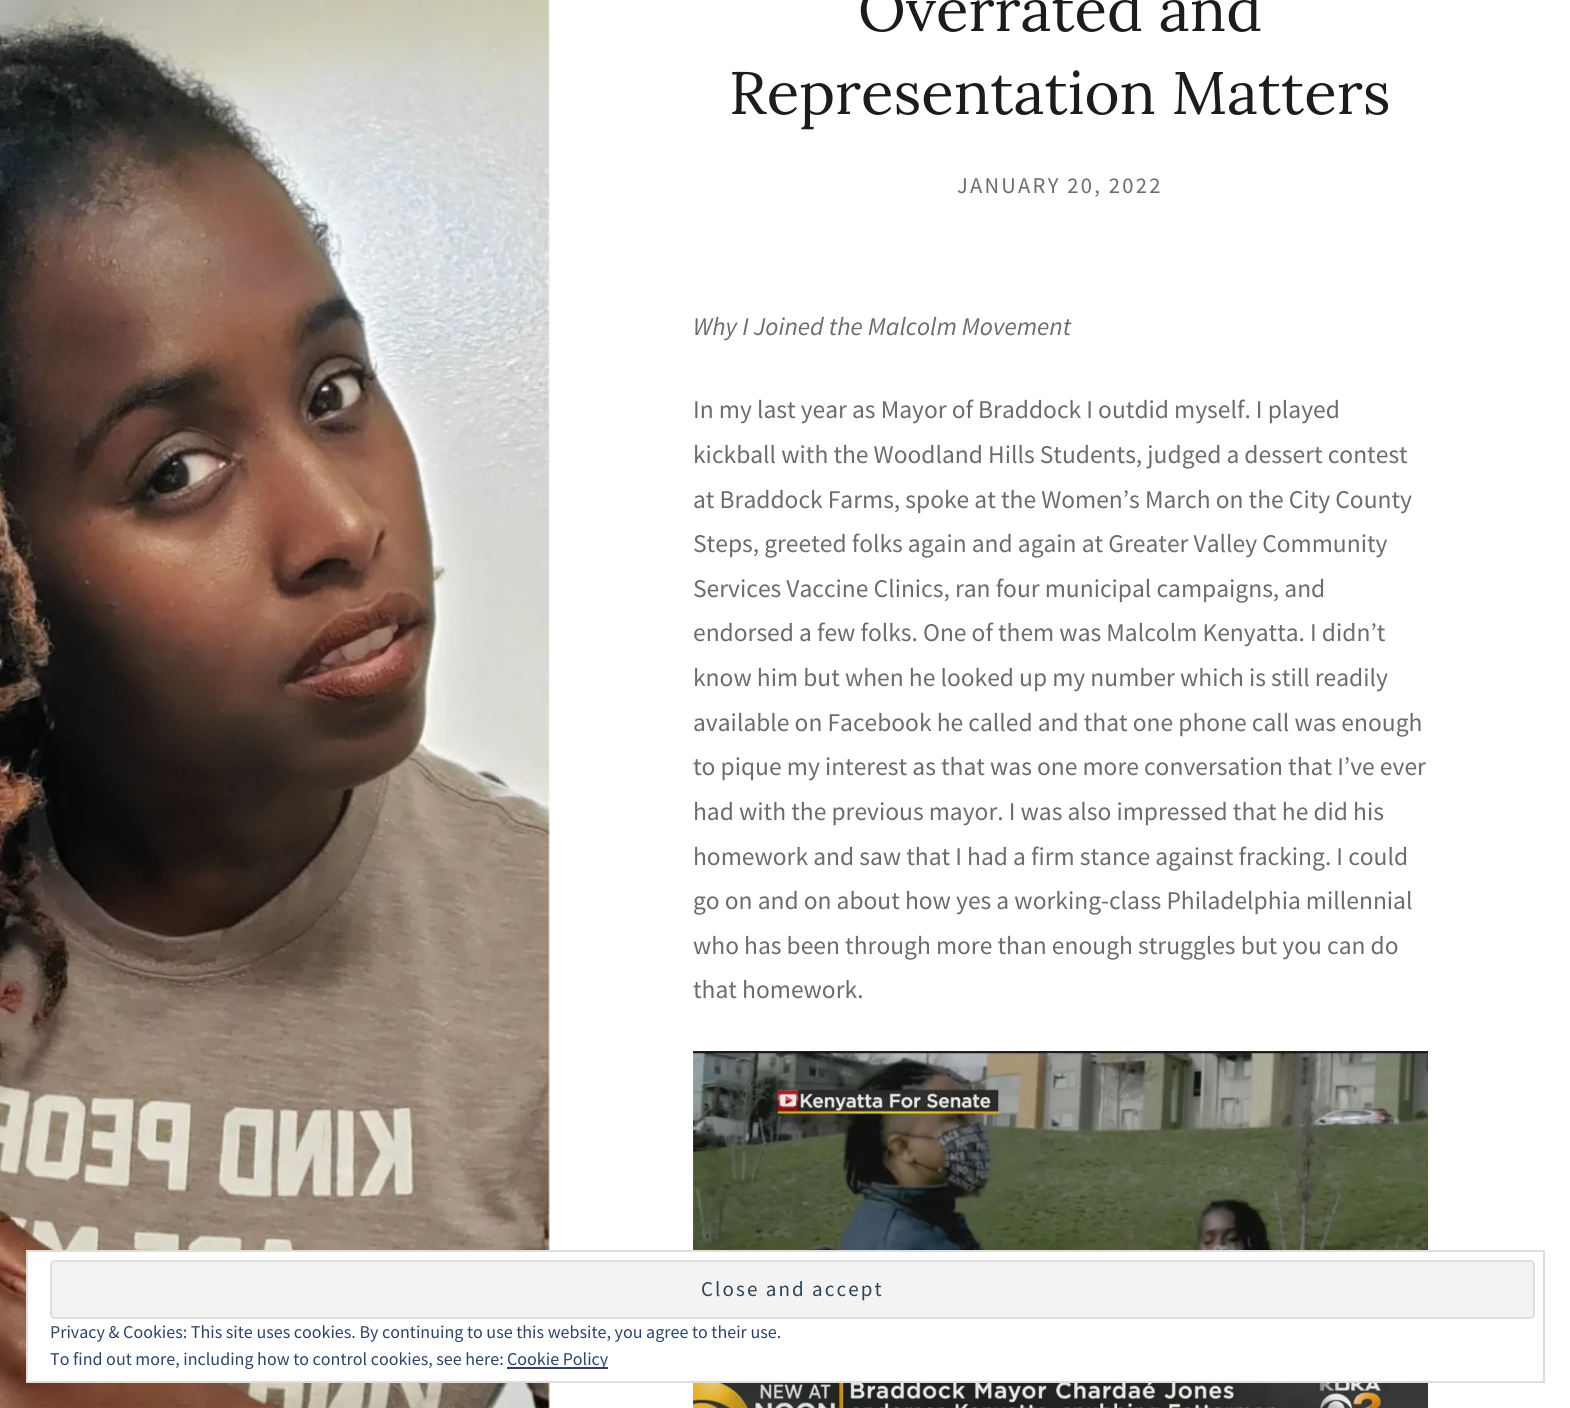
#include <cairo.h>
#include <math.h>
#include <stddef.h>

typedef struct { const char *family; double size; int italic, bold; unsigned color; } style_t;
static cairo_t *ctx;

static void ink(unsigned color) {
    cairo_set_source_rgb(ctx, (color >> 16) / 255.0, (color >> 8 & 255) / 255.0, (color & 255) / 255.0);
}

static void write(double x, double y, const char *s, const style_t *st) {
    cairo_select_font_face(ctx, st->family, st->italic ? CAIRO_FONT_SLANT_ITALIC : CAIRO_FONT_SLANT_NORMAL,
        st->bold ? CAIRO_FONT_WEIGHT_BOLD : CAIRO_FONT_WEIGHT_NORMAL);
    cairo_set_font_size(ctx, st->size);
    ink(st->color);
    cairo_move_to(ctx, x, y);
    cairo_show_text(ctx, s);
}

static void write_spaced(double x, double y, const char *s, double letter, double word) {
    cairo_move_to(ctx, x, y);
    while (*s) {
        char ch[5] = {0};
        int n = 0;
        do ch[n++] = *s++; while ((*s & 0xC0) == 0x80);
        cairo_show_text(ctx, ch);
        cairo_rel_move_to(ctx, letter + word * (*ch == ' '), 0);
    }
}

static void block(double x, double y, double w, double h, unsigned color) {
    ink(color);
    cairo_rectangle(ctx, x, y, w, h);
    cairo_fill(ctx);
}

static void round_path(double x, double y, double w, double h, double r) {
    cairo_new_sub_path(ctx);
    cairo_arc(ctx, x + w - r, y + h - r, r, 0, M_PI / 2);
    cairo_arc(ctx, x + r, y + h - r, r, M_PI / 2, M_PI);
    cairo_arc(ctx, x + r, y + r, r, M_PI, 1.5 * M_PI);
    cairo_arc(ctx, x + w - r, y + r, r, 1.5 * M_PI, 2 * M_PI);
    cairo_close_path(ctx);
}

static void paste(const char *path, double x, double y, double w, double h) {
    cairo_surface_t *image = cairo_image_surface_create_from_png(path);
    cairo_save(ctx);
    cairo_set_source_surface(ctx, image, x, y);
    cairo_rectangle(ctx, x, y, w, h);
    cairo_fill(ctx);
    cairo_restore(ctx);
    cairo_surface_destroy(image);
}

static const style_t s1 = {"Lora", 60, 0, 0, 0x1a1c1e};
static const style_t s2 = {"Source Sans Pro", 25.5, 1, 0, 0x6a6c6e};
static const style_t s3 = {"Source Sans Pro", 25.5, 0, 0, 0x6a6c6e};
static const style_t s4 = {"Source Sans Pro", 18, 0, 0, 0x2e4467};

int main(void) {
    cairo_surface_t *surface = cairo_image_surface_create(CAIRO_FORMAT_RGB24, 1570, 1408);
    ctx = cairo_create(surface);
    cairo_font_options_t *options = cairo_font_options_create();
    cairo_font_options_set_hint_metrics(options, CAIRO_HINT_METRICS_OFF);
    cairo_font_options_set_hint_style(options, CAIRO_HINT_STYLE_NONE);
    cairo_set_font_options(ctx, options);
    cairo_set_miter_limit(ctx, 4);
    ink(0xffffff);
    cairo_paint(ctx);
    paste("pic1.png", 0, 0, 550, 1408);
    write(858, 31, "Overrated and", &s1);
    write(729, 114, "Representation Matters", &s1);
    cairo_select_font_face(ctx, "Source Sans Pro", CAIRO_FONT_SLANT_NORMAL, CAIRO_FONT_WEIGHT_NORMAL);
    cairo_set_font_size(ctx, 22.5);
    ink(0x6a6c6e);
    write_spaced(957, 193, "JANUARY 20, 2022", 2.25, 0);
    write(693, 335, "Why I Joined the Malcolm Movement", &s2);
    write(693, 418, "In my last year as Mayor of Braddock I outdid myself. I played", &s3);
    write(693, 463, "kickball with the Woodland Hills Students, judged a dessert contest", &s3);
    write(693, 508, "at Braddock Farms, spoke at the Women’s March on the City County", &s3);
    write(693, 552, "Steps, greeted folks again and again at Greater Valley Community", &s3);
    write(693, 597, "Services Vaccine Clinics, ran four municipal campaigns, and", &s3);
    write(693, 641, "endorsed a few folks. One of them was Malcolm Kenyatta. I didn’t", &s3);
    write(693, 686, "know him but when he looked up my number which is still readily", &s3);
    write(693, 731, "available on Facebook he called and that one phone call was enough", &s3);
    write(693, 775, "to pique my interest as that was one more conversation that I’ve ever", &s3);
    write(693, 820, "had with the previous mayor. I was also impressed that he did his", &s3);
    write(693, 865, "homework and saw that I had a firm stance against fracking. I could", &s3);
    write(693, 909, "go on and on about how yes a working-class Philadelphia millennial", &s3);
    write(693, 954, "who has been through more than enough struggles but you can do", &s3);
    write(693, 998, "that homework.", &s3);
    paste("pic2.png", 693, 1051, 735, 357);
    block(28, 1252, 1400, 129, 0xffffff);
    cairo_rectangle(ctx, 27, 1251, 1517, 131);
    ink(0xdedede);
    cairo_stroke(ctx);
    ink(0xf3f3f3);
    round_path(51, 1261, 1483, 57, 4);
    cairo_fill_preserve(ctx);
    ink(0xdedede);
    cairo_stroke(ctx);
    cairo_set_font_size(ctx, 21);
    ink(0x2e4453);
    write_spaced(701, 1296, "Close and accept", 2.1, 0);
    write(50, 1338, "Privacy & Cookies: This site uses cookies. By continuing to use this website, you agree to their use.", &s4);
    write(50, 1365, "To find out more, including how to control cookies, see here:", &s4);
    block(507, 1367, 101, 2, 0x2e4467);
    write(507, 1365, "Cookie Policy", &s4);
    cairo_surface_write_to_png(surface, "screenshot.png");
    cairo_font_options_destroy(options);
    cairo_destroy(ctx);
    cairo_surface_destroy(surface);
    return 0;
}
